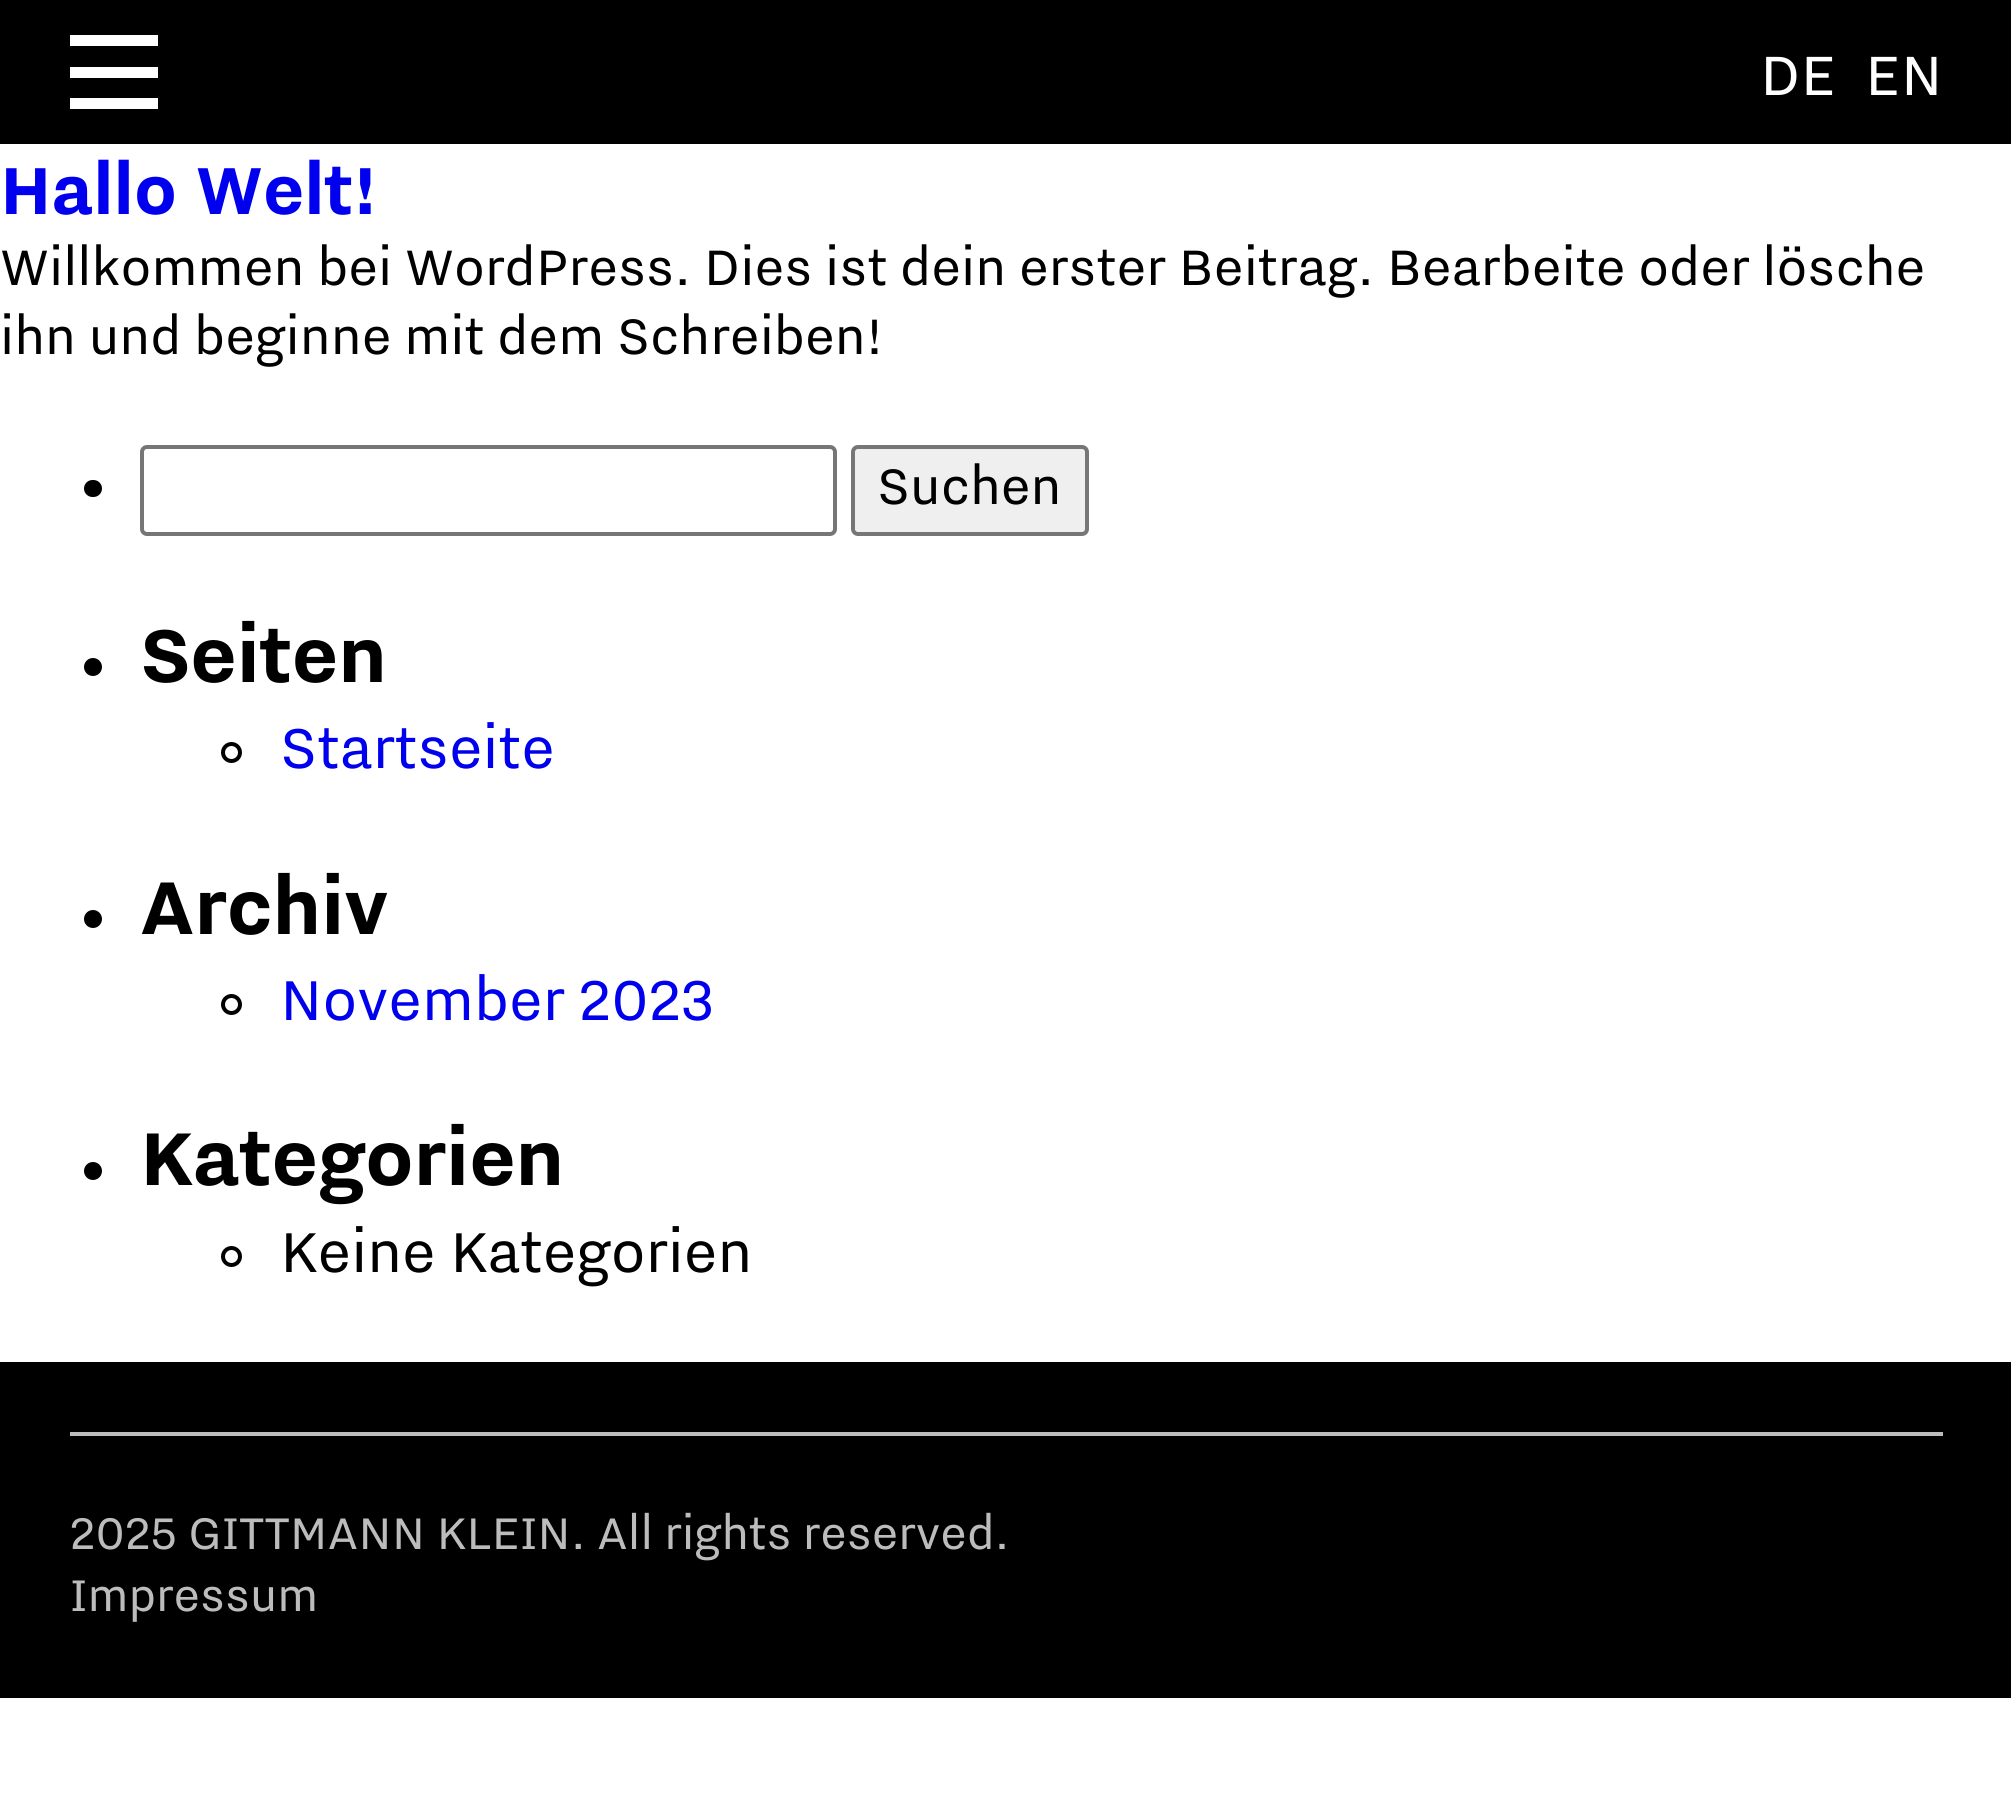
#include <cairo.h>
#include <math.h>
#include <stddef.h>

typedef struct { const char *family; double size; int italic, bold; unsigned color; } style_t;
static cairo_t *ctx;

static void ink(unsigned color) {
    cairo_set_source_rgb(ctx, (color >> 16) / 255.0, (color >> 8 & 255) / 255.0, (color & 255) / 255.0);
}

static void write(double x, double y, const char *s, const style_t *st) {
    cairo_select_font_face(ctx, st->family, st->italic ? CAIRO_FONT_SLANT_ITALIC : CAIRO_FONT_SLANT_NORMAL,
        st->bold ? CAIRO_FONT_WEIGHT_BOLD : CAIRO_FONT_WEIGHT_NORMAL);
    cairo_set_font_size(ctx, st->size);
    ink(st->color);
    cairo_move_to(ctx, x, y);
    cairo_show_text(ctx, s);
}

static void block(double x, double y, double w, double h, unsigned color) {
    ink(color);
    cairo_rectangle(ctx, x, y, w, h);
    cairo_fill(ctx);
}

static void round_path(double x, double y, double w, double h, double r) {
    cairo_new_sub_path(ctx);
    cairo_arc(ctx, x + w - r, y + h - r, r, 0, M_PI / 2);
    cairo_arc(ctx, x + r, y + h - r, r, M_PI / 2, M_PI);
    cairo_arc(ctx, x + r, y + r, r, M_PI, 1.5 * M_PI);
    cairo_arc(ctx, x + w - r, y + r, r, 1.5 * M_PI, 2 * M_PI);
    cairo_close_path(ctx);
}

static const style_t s1 = {"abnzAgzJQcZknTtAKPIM", 70, 0, 0, 0xffffff};
static const style_t s2 = {"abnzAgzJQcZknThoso", 84, 0, 1, 0x0000ee};
static const style_t s3 = {"abnzAgzJQcZknTtAKPIM", 63, 0, 0, 0x000000};
static const style_t s4 = {"abnzAgzJQcZknThoso", 94.5, 0, 1, 0x000000};
static const style_t s5 = {"abnzAgzJQcZknTtAKPIM", 71, 0, 0, 0x0000ee};
static const style_t s6 = {"abnzAgzJQcZknTtAKPIM", 71, 0, 0, 0x000000};
static const style_t s7 = {"abnzAgzJQcZknTtAKPIM", 56, 0, 0, 0xbcbcbc};

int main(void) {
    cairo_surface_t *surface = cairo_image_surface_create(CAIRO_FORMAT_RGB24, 2011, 1809);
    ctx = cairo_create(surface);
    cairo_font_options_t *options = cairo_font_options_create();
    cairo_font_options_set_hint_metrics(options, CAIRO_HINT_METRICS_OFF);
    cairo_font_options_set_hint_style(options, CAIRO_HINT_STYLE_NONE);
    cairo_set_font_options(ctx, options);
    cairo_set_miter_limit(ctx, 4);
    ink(0xffffff);
    cairo_paint(ctx);
    block(0, 0, 2011, 144, 0x000000);
    block(70, 35, 88, 11, 0xffffff);
    block(70, 98, 88, 11, 0xffffff);
    block(70, 67, 88, 11, 0xffffff);
    write(1760, 95, "DE", &s1);
    write(1865, 95, "EN", &s1);
    write(0, 214, "Hallo Welt!", &s2);
    write(0, 285, "Willkommen bei WordPress. Dies ist dein erster Beitrag. Bearbeite oder lösche", &s3);
    write(0, 354, "ihn und beginne mit dem Schreiben!", &s3);
    round_path(84, 480, 18, 17, 8.5);
    cairo_fill(ctx);
    round_path(142, 447, 693, 87, 5);
    ink(0x767676);
    cairo_set_line_width(ctx, 4);
    cairo_stroke(ctx);
    ink(0xefefef);
    round_path(853, 447, 234, 87, 5);
    cairo_fill_preserve(ctx);
    ink(0x767676);
    cairo_stroke(ctx);
    write(877, 504, "Suchen", &s3);
    cairo_new_path(ctx);
    cairo_arc(ctx, 93, 667, 9, 0, 2 * M_PI);
    cairo_fill(ctx);
    write(140, 682, "Seiten", &s4);
    cairo_new_path(ctx);
    cairo_arc(ctx, 231.5, 752.5, 8.5, 0, 2 * M_PI);
    cairo_stroke(ctx);
    write(280, 768, "Startseite", &s5);
    ink(0x000000);
    cairo_new_path(ctx);
    cairo_arc(ctx, 93, 919, 9, 0, 2 * M_PI);
    cairo_fill(ctx);
    write(140, 934, "Archiv", &s4);
    cairo_new_path(ctx);
    cairo_arc(ctx, 231.5, 1004.5, 8.5, 0, 2 * M_PI);
    cairo_stroke(ctx);
    write(280, 1020, "November 2023", &s5);
    ink(0x000000);
    cairo_new_path(ctx);
    cairo_arc(ctx, 93, 1171, 9, 0, 2 * M_PI);
    cairo_fill(ctx);
    write(140, 1185, "Kategorien", &s4);
    cairo_new_path(ctx);
    cairo_arc(ctx, 231.5, 1256.5, 8.5, 0, 2 * M_PI);
    cairo_stroke(ctx);
    write(280, 1272, "Keine Kategorien", &s6);
    block(0, 1362, 2011, 336, 0x000000);
    block(70, 1432, 1873, 4, 0xbcbcbc);
    write(70, 1549, "2025 GITTMANN KLEIN. All rights reserved.", &s7);
    write(70, 1611, "Impressum", &s7);
    cairo_surface_write_to_png(surface, "screenshot.png");
    cairo_font_options_destroy(options);
    cairo_destroy(ctx);
    cairo_surface_destroy(surface);
    return 0;
}
